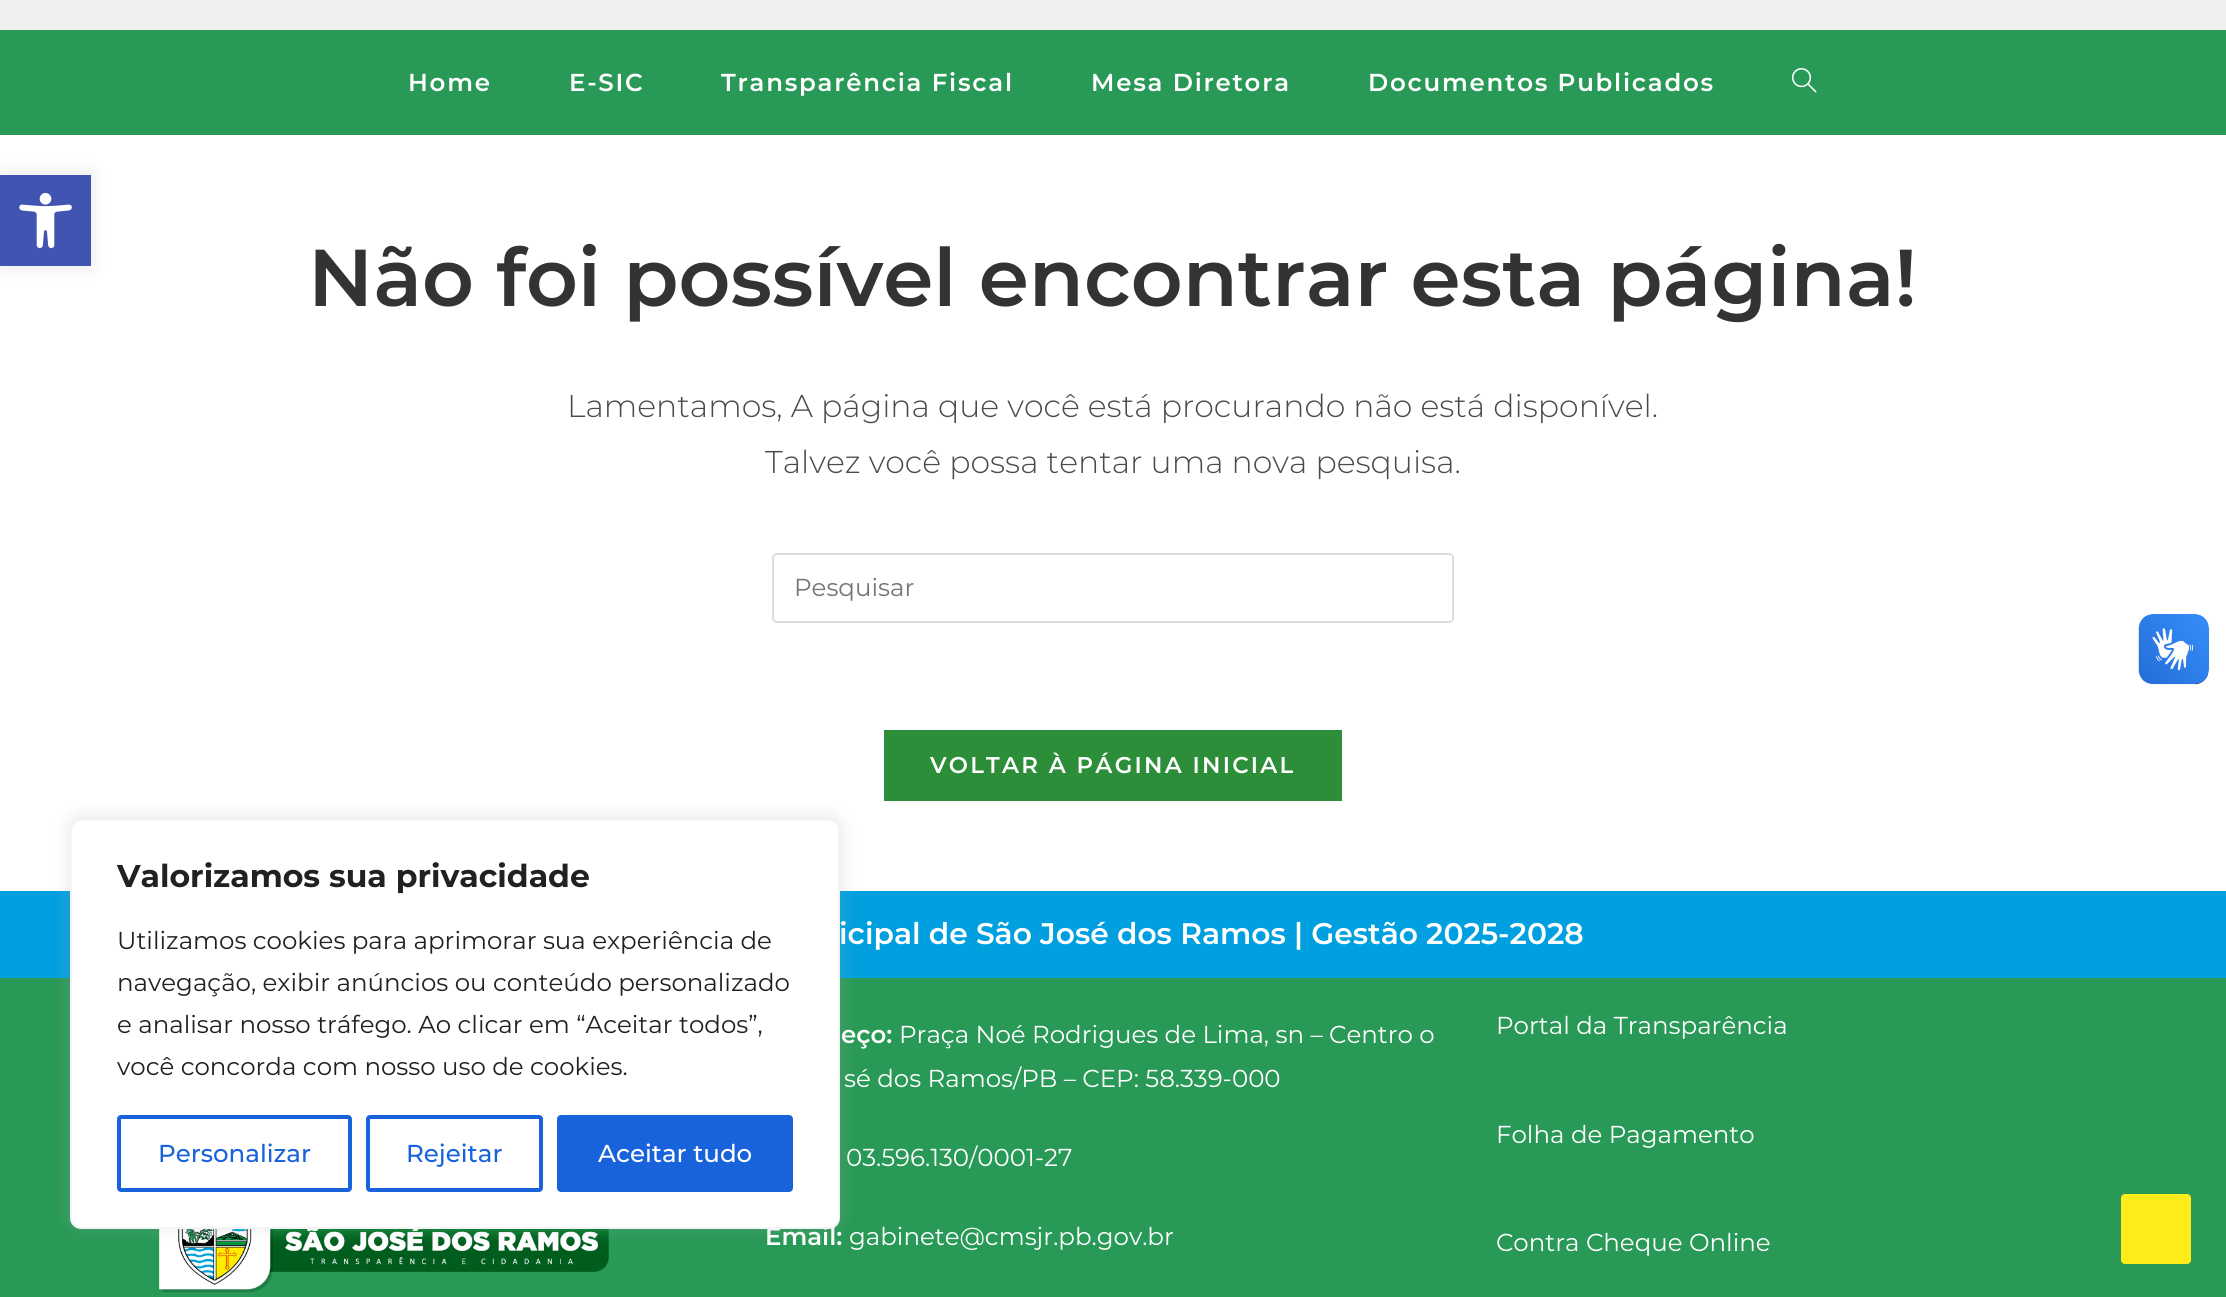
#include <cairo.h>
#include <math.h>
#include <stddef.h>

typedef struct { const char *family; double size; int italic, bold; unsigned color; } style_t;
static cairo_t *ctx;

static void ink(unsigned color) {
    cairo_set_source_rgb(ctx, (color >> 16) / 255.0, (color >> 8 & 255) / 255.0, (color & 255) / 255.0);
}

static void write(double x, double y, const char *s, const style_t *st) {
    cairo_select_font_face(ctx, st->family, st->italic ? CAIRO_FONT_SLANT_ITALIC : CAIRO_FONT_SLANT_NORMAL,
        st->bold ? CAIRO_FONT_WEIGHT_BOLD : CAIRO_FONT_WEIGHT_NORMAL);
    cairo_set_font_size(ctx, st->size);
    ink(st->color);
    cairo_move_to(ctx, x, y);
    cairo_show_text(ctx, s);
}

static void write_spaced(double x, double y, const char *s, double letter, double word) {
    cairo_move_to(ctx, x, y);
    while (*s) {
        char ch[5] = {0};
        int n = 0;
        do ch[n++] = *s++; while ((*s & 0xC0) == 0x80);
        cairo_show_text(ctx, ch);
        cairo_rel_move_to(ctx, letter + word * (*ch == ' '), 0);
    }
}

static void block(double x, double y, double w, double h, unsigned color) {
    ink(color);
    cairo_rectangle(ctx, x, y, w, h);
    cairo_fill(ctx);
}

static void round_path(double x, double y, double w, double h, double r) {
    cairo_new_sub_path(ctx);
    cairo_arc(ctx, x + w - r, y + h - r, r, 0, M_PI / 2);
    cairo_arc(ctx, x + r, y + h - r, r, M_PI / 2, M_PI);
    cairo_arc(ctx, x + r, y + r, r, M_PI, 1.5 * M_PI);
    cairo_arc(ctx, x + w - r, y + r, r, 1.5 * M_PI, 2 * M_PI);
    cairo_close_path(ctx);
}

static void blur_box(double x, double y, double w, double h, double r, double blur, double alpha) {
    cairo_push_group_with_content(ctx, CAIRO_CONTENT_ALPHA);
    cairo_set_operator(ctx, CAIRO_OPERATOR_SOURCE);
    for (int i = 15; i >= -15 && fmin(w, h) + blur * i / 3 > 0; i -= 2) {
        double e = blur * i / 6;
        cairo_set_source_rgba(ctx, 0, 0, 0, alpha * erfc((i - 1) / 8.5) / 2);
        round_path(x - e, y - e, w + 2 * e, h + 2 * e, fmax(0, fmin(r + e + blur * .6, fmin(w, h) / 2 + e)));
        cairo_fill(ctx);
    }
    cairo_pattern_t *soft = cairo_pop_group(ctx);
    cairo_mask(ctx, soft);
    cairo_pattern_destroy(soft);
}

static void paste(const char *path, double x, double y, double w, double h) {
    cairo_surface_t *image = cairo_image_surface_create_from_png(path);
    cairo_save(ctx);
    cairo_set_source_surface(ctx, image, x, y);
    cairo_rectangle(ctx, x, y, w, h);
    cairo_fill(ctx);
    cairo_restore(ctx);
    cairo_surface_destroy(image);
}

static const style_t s1 = {"Montserrat SemiBold", 80.5, 0, 0, 0x333333};
static const style_t s2 = {"Montserrat Light", 31.5, 0, 0, 0x4a4a4a};
static const style_t s3 = {"Montserrat", 24.5, 0, 0, 0x757575};
static const style_t s4 = {"Montserrat SemiBold", 29.75, 0, 0, 0xffffff};
static const style_t s5 = {"Montserrat SemiBold", 24.5, 0, 0, 0xffffff};
static const style_t s6 = {"Montserrat", 24.5, 0, 0, 0xffffff};
static const style_t s7 = {"Montserrat", 31.5, 0, 1, 0x212121};
static const style_t s8 = {"Montserrat", 24.5, 0, 0, 0x212121};
static const style_t s9 = {"Montserrat Medium", 24.5, 0, 0, 0x1863dc};
static const style_t s10 = {"Montserrat Medium", 24.5, 0, 0, 0xffffff};

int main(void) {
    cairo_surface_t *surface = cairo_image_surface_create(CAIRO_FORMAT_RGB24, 2226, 1297);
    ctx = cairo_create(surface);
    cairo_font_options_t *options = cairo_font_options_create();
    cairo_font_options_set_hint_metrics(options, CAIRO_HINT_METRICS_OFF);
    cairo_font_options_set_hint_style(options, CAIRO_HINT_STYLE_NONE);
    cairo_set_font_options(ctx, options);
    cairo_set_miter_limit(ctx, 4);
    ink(0xffffff);
    cairo_paint(ctx);
    ink(0x000000);
    blur_box(0, 175, 91, 91, 0, 9, 0.1);
    block(0, 175, 91, 91, 0x4054b2);
    paste("pic1.png", 19, 193, 53, 56);
    block(0, 0, 2226, 30, 0xf0f0f1);
    block(0, 30, 2226, 105, 0x289956);
    cairo_select_font_face(ctx, "Montserrat SemiBold", CAIRO_FONT_SLANT_NORMAL, CAIRO_FONT_WEIGHT_NORMAL);
    cairo_set_font_size(ctx, 24.5);
    ink(0xffffff);
    write_spaced(408, 91, "Home", 1.75, 0);
    write_spaced(569, 91, "E-SIC", 1.75, 0);
    write_spaced(721, 91, "Transparência Fiscal", 1.75, 0);
    write_spaced(1091, 91, "Mesa Diretora", 1.75, 0);
    write_spaced(1368, 91, "Documentos Publicados", 1.75, 0);
    paste("pic2.png", 1791, 68, 26, 25);
    write(308, 306, "Não foi possível encontrar esta página!", &s1);
    write(567, 417, "Lamentamos, A página que você está procurando não está disponível.", &s2);
    write(765, 473, "Talvez você possa tentar uma nova pesquisa.", &s2);
    round_path(773, 554, 680, 68, 4);
    ink(0xdddddd);
    cairo_stroke(ctx);
    write(794, 596, "Pesquisar", &s3);
    block(884, 730, 458, 71, 0x2d8e3a);
    cairo_select_font_face(ctx, "Montserrat SemiBold", CAIRO_FONT_SLANT_NORMAL, CAIRO_FONT_WEIGHT_NORMAL);
    cairo_set_font_size(ctx, 22.75);
    ink(0xffffff);
    write_spaced(930, 773, "VOLTAR À PÁGINA INICIAL", 2.25, 0);
    block(0, 891, 2226, 87, 0x009fdf);
    write(839, 944, "icipal de São José dos Ramos | Gestão 2025-2028", &s4);
    block(0, 978, 2226, 319, 0x289956);
    write(841, 1043, "eço:", &s5);
    write(899, 1043, "Praça Noé Rodrigues de Lima, sn – Centro o", &s6);
    write(844, 1087, "sé dos Ramos/PB – CEP: 58.339-000", &s6);
    write(846, 1166, "03.596.130/0001-27", &s6);
    write(765, 1245, "Email:", &s5);
    write(849, 1245, "gabinete@cmsjr.pb.gov.br", &s6);
    write(1496, 1034, "Portal da Transparência", &s6);
    write(1496, 1143, "Folha de Pagamento", &s6);
    write(1496, 1251, "Contra Cheque Online", &s6);
    paste("pic3.png", 159, 1229, 450, 64);
    paste("pic4.png", 2138, 614, 71, 71);
    paste("pic5.png", 2139, 614, 70, 70);
    ink(0xacabab);
    blur_box(70, 817, 770, 410, 11, 9, 0.3);
    ink(0xffffff);
    round_path(71, 820, 768, 408, 10);
    cairo_fill_preserve(ctx);
    ink(0xf4f4f4);
    cairo_stroke(ctx);
    write(117, 887, "Valorizamos sua privacidade", &s7);
    write(117, 949, "Utilizamos cookies para aprimorar sua experiência de", &s8);
    write(117, 991, "navegação, exibir anúncios ou conteúdo personalizado", &s8);
    write(117, 1033, "e analisar nosso tráfego. Ao clicar em “Aceitar todos”,", &s8);
    write(117, 1075, "você concorda com nosso uso de cookies.", &s8);
    round_path(119, 1117, 231, 73, 2);
    ink(0x1863dc);
    cairo_set_line_width(ctx, 4);
    cairo_stroke(ctx);
    write(158, 1162, "Personalizar", &s9);
    round_path(368, 1117, 173, 73, 2);
    cairo_stroke(ctx);
    write(406, 1162, "Rejeitar", &s9);
    round_path(559, 1117, 232, 73, 2);
    cairo_fill_preserve(ctx);
    cairo_stroke(ctx);
    write(598, 1162, "Aceitar tudo", &s10);
    ink(0xfeeb1a);
    round_path(2121, 1194, 70, 70, 4);
    cairo_fill(ctx);
    cairo_surface_write_to_png(surface, "screenshot.png");
    cairo_font_options_destroy(options);
    cairo_destroy(ctx);
    cairo_surface_destroy(surface);
    return 0;
}
